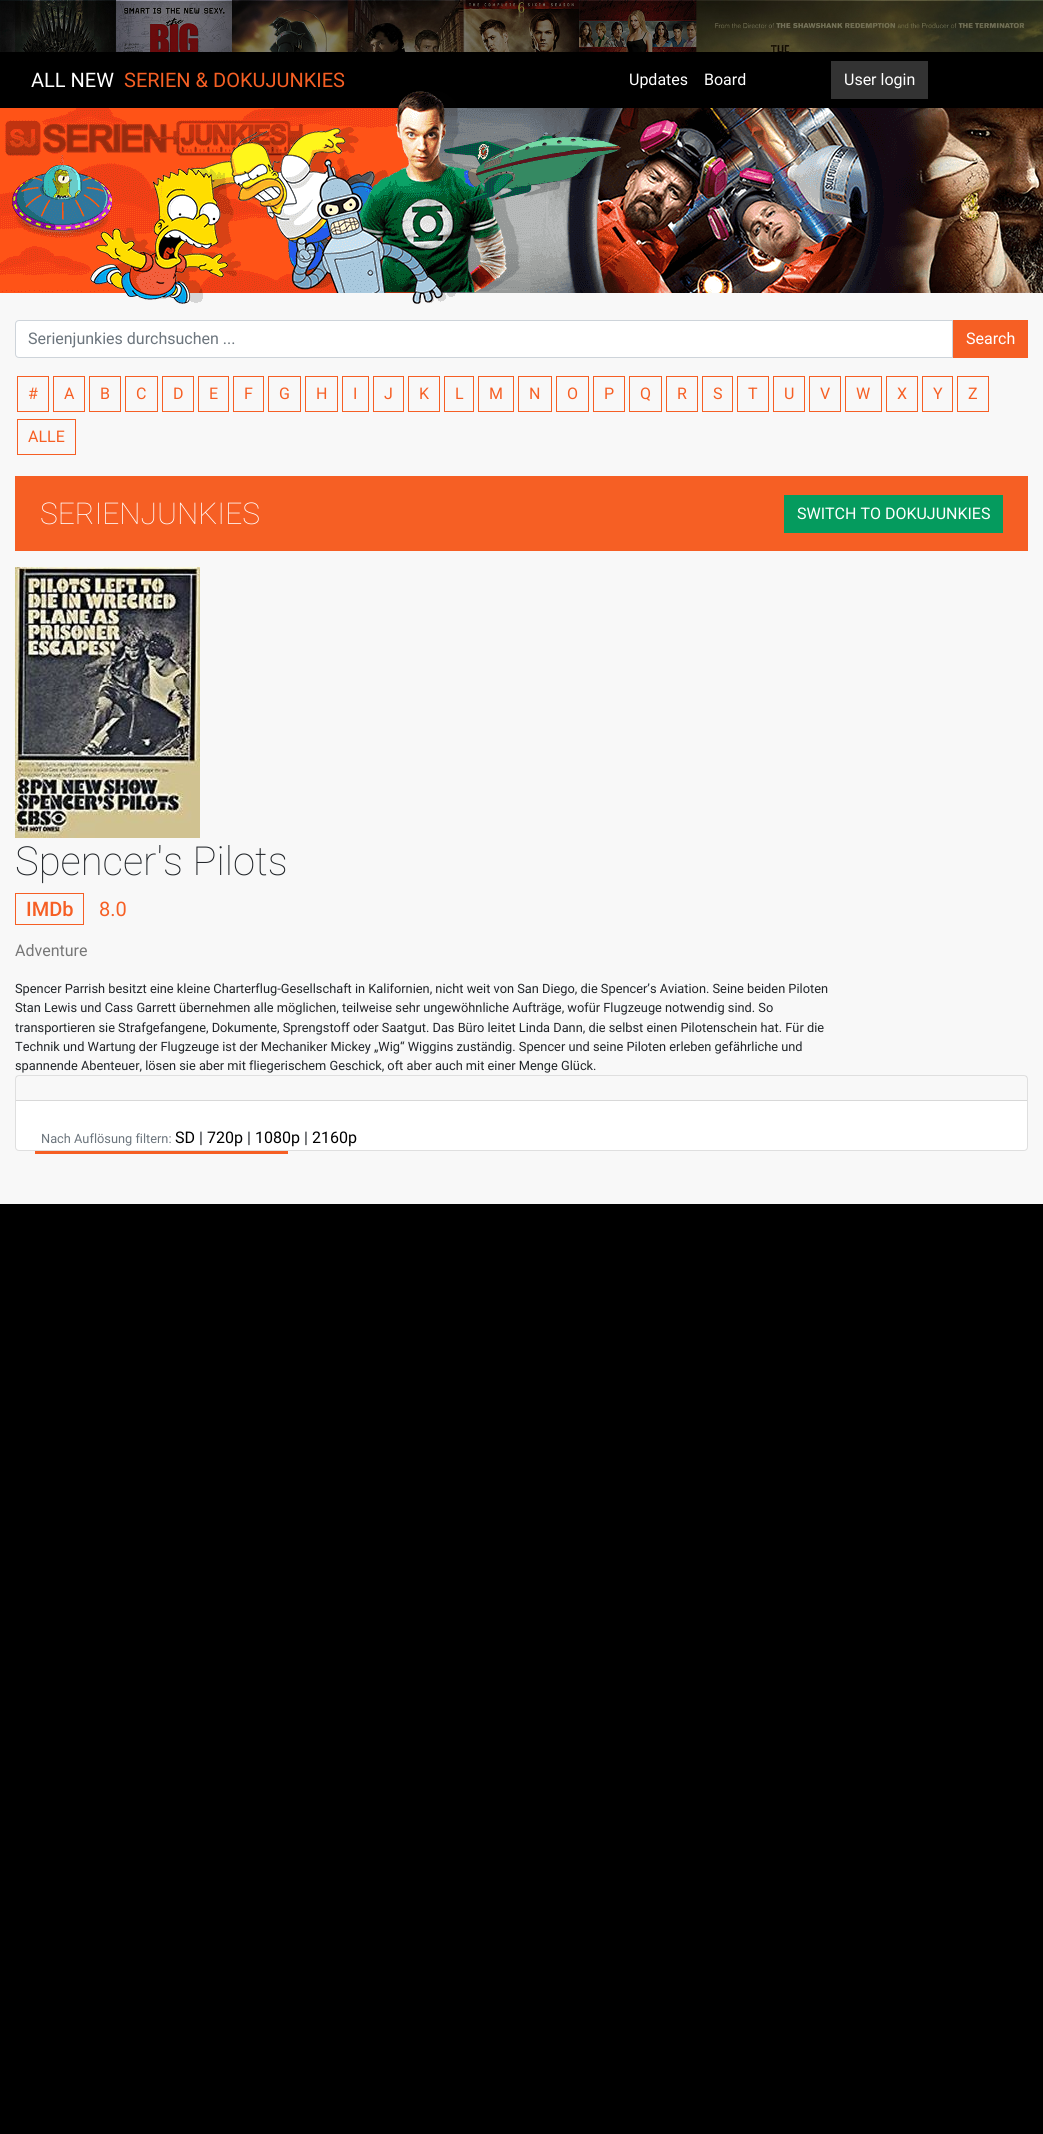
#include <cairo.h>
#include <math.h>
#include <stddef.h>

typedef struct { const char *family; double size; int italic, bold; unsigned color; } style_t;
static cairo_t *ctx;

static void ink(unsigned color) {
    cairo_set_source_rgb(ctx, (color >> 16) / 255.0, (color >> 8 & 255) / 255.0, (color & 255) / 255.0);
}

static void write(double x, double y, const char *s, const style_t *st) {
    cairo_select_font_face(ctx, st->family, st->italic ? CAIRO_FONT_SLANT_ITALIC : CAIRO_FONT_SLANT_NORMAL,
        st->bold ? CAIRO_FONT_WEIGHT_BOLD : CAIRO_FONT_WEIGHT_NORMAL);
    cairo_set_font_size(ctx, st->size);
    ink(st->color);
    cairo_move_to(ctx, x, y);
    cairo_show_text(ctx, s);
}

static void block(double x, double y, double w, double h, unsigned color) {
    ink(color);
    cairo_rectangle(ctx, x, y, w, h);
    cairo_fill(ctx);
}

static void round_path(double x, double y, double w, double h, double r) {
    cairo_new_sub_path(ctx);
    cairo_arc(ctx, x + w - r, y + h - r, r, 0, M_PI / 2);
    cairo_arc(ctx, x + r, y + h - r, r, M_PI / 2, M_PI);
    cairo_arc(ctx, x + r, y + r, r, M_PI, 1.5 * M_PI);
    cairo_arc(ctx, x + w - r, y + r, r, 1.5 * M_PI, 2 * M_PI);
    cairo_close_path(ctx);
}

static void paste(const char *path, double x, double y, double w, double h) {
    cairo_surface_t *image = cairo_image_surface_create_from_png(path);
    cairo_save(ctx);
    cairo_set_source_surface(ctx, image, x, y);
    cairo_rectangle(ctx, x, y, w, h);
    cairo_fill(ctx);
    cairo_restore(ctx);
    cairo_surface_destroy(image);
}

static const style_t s1 = {"Roboto", 20, 0, 0, 0xffffff};
static const style_t s2 = {"Roboto", 20, 0, 0, 0xf65f24};
static const style_t s3 = {"Roboto", 16, 0, 0, 0xffffff};
static const style_t s4 = {"Roboto", 16, 0, 0, 0x6c757d};
static const style_t s5 = {"Roboto", 16, 0, 0, 0xf65f24};
static const style_t s6 = {"Roboto Thin", 30, 0, 0, 0xffffff};
static const style_t s7 = {"Roboto Thin", 40, 0, 0, 0x212529};
static const style_t s8 = {"Roboto Medium", 20, 0, 0, 0xf65f24};
static const style_t s9 = {"Roboto", 16, 0, 0, 0x777777};
static const style_t s10 = {"Roboto", 12.8, 0, 0, 0x212529};
static const style_t s11 = {"Roboto", 12.8, 0, 0, 0x6c757d};
static const style_t s12 = {"Roboto", 16, 0, 0, 0x000000};
static const style_t s13 = {"Roboto", 16, 0, 0, 0x212529};

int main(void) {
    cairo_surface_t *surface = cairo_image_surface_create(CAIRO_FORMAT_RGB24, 1043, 2134);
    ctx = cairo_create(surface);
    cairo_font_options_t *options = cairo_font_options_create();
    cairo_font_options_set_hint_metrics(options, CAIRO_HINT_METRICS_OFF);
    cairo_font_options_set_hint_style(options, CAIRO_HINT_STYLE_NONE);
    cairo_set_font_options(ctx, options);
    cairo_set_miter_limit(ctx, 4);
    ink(0x000000);
    cairo_paint(ctx);
    paste("pic1.png", 0, 0, 1043, 52);
    block(0, 293, 1043, 911, 0xf8f8f8);
    write(31, 87, "ALL NEW", &s1);
    write(124, 87, "SERIEN & DOKUJUNKIES", &s2);
    write(629, 85, "Updates", &s3);
    write(704, 85, "Board", &s3);
    block(831, 61, 97, 38, 0x333333);
    write(844, 85, "User login", &s3);
    paste("pic2.png", 0, 91, 1043, 213);
    cairo_new_path(ctx);
    cairo_move_to(ctx, 19, 320.5);
    cairo_line_to(ctx, 952.5, 320.5);
    cairo_line_to(ctx, 952.5, 357.5);
    cairo_line_to(ctx, 19, 357.5);
    cairo_curve_to(ctx, 17, 357.5, 15.5, 356, 15.5, 354);
    cairo_line_to(ctx, 15.5, 324);
    cairo_curve_to(ctx, 15.5, 322, 17, 320.5, 19, 320.5);
    cairo_close_path(ctx);
    cairo_fill_preserve(ctx);
    ink(0xced4da);
    cairo_set_line_width(ctx, 1);
    cairo_stroke(ctx);
    write(28, 344, "Serienjunkies durchsuchen ...", &s4);
    block(953, 320, 75, 38, 0xf65f24);
    write(966, 344, "Search", &s3);
    cairo_rectangle(ctx, 17.5, 376.5, 31, 35);
    ink(0xf65f24);
    cairo_stroke(ctx);
    write(28, 399, "#", &s5);
    cairo_rectangle(ctx, 53.5, 376.5, 31, 35);
    cairo_stroke(ctx);
    write(64, 399, "A", &s5);
    cairo_rectangle(ctx, 89.5, 376.5, 31, 35);
    cairo_stroke(ctx);
    write(100, 399, "B", &s5);
    cairo_rectangle(ctx, 125.5, 376.5, 32, 35);
    cairo_stroke(ctx);
    write(136, 399, "C", &s5);
    cairo_rectangle(ctx, 162.5, 376.5, 31, 35);
    cairo_stroke(ctx);
    write(173, 399, "D", &s5);
    cairo_rectangle(ctx, 198.5, 376.5, 30, 35);
    cairo_stroke(ctx);
    write(209, 399, "E", &s5);
    cairo_rectangle(ctx, 233.5, 376.5, 30, 35);
    cairo_stroke(ctx);
    write(244, 399, "F", &s5);
    cairo_rectangle(ctx, 268.5, 376.5, 32, 35);
    cairo_stroke(ctx);
    write(279, 399, "G", &s5);
    cairo_rectangle(ctx, 305.5, 376.5, 32, 35);
    cairo_stroke(ctx);
    write(316, 399, "H", &s5);
    cairo_rectangle(ctx, 342.5, 376.5, 26, 35);
    cairo_stroke(ctx);
    write(353, 399, "I", &s5);
    cairo_rectangle(ctx, 373.5, 376.5, 30, 35);
    cairo_stroke(ctx);
    write(384, 399, "J", &s5);
    cairo_rectangle(ctx, 408.5, 376.5, 31, 35);
    cairo_stroke(ctx);
    write(419, 399, "K", &s5);
    cairo_rectangle(ctx, 444.5, 376.5, 29, 35);
    cairo_stroke(ctx);
    write(455, 399, "L", &s5);
    cairo_rectangle(ctx, 478.5, 376.5, 35, 35);
    cairo_stroke(ctx);
    write(489, 399, "M", &s5);
    cairo_rectangle(ctx, 518.5, 376.5, 33, 35);
    cairo_stroke(ctx);
    write(529, 399, "N", &s5);
    cairo_rectangle(ctx, 556.5, 376.5, 32, 35);
    cairo_stroke(ctx);
    write(567, 399, "O", &s5);
    cairo_rectangle(ctx, 593.5, 376.5, 31, 35);
    cairo_stroke(ctx);
    write(604, 399, "P", &s5);
    cairo_rectangle(ctx, 629.5, 376.5, 32, 35);
    cairo_stroke(ctx);
    write(640, 399, "Q", &s5);
    cairo_rectangle(ctx, 666.5, 376.5, 31, 35);
    cairo_stroke(ctx);
    write(677, 399, "R", &s5);
    cairo_rectangle(ctx, 702.5, 376.5, 30, 35);
    cairo_stroke(ctx);
    write(713, 399, "S", &s5);
    cairo_rectangle(ctx, 737.5, 376.5, 31, 35);
    cairo_stroke(ctx);
    write(748, 399, "T", &s5);
    cairo_rectangle(ctx, 773.5, 376.5, 31, 35);
    cairo_stroke(ctx);
    write(784, 399, "U", &s5);
    cairo_rectangle(ctx, 809.5, 376.5, 31, 35);
    cairo_stroke(ctx);
    write(820, 399, "V", &s5);
    cairo_rectangle(ctx, 845.5, 376.5, 36, 35);
    cairo_stroke(ctx);
    write(856, 399, "W", &s5);
    cairo_rectangle(ctx, 886.5, 376.5, 31, 35);
    cairo_stroke(ctx);
    write(897, 399, "X", &s5);
    cairo_rectangle(ctx, 922.5, 376.5, 30, 35);
    cairo_stroke(ctx);
    write(933, 399, "Y", &s5);
    cairo_rectangle(ctx, 957.5, 376.5, 31, 35);
    cairo_stroke(ctx);
    write(968, 399, "Z", &s5);
    cairo_rectangle(ctx, 17.5, 419.5, 58, 35);
    cairo_stroke(ctx);
    write(28, 442, "ALLE", &s5);
    block(15, 476, 1013, 75, 0xf65f24);
    write(40, 524, "SERIENJUNKIES", &s6);
    block(784, 495, 219, 38, 0x059b5e);
    write(797, 519, "SWITCH TO DOKUJUNKIES", &s3);
    paste("pic3.png", 15, 567, 185, 271);
    write(15, 875, "Spencer's Pilots", &s7);
    cairo_rectangle(ctx, 15.5, 893.5, 68, 31);
    ink(0xf65f24);
    cairo_stroke(ctx);
    write(26, 916, "IMDb", &s8);
    write(99, 916, "8.0", &s2);
    write(15, 956, "Adventure", &s9);
    write(15, 993, "Spencer Parrish besitzt eine kleine Charterflug-Gesellschaft in Kalifornien, nicht weit von San Diego, die Spencer’s Aviation. Seine beiden Piloten", &s10);
    write(15, 1012, "Stan Lewis und Cass Garrett übernehmen alle möglichen, teilweise sehr ungewöhnliche Aufträge, wofür Flugzeuge notwendig sind. So", &s10);
    write(15, 1032, "transportieren sie Strafgefangene, Dokumente, Sprengstoff oder Saatgut. Das Büro leitet Linda Dann, die selbst einen Pilotenschein hat. Für die", &s10);
    write(15, 1051, "Technik und Wartung der Flugzeuge ist der Mechaniker Mickey „Wig“ Wiggins zuständig. Spencer und seine Piloten erleben gefährliche und", &s10);
    write(15, 1070, "spannende Abenteuer, lösen sie aber mit fliegerischem Geschick, oft aber auch mit einer Menge Glück.", &s10);
    ink(0xffffff);
    round_path(15.5, 1075.5, 1012, 75, 3.5);
    cairo_fill_preserve(ctx);
    ink(0xdfdfdf);
    cairo_stroke(ctx);
    cairo_set_source_rgba(ctx, 0, 0, 0, 0.03);
    cairo_rectangle(ctx, 16, 1076, 1011, 24);
    cairo_fill(ctx);
    block(16, 1100, 1011, 1, 0xd8d8d8);
    write(41, 1143, "Nach Auflösung filtern:", &s11);
    write(175, 1143, "SD", &s12);
    write(199, 1143, "|", &s13);
    write(207, 1143, "720p", &s12);
    write(247, 1143, "|", &s13);
    write(255, 1143, "1080p", &s12);
    write(304, 1143, "|", &s13);
    write(312, 1143, "2160p", &s12);
    block(35, 1151, 253, 3, 0xf65f24);
    cairo_surface_write_to_png(surface, "screenshot.png");
    cairo_font_options_destroy(options);
    cairo_destroy(ctx);
    cairo_surface_destroy(surface);
    return 0;
}
